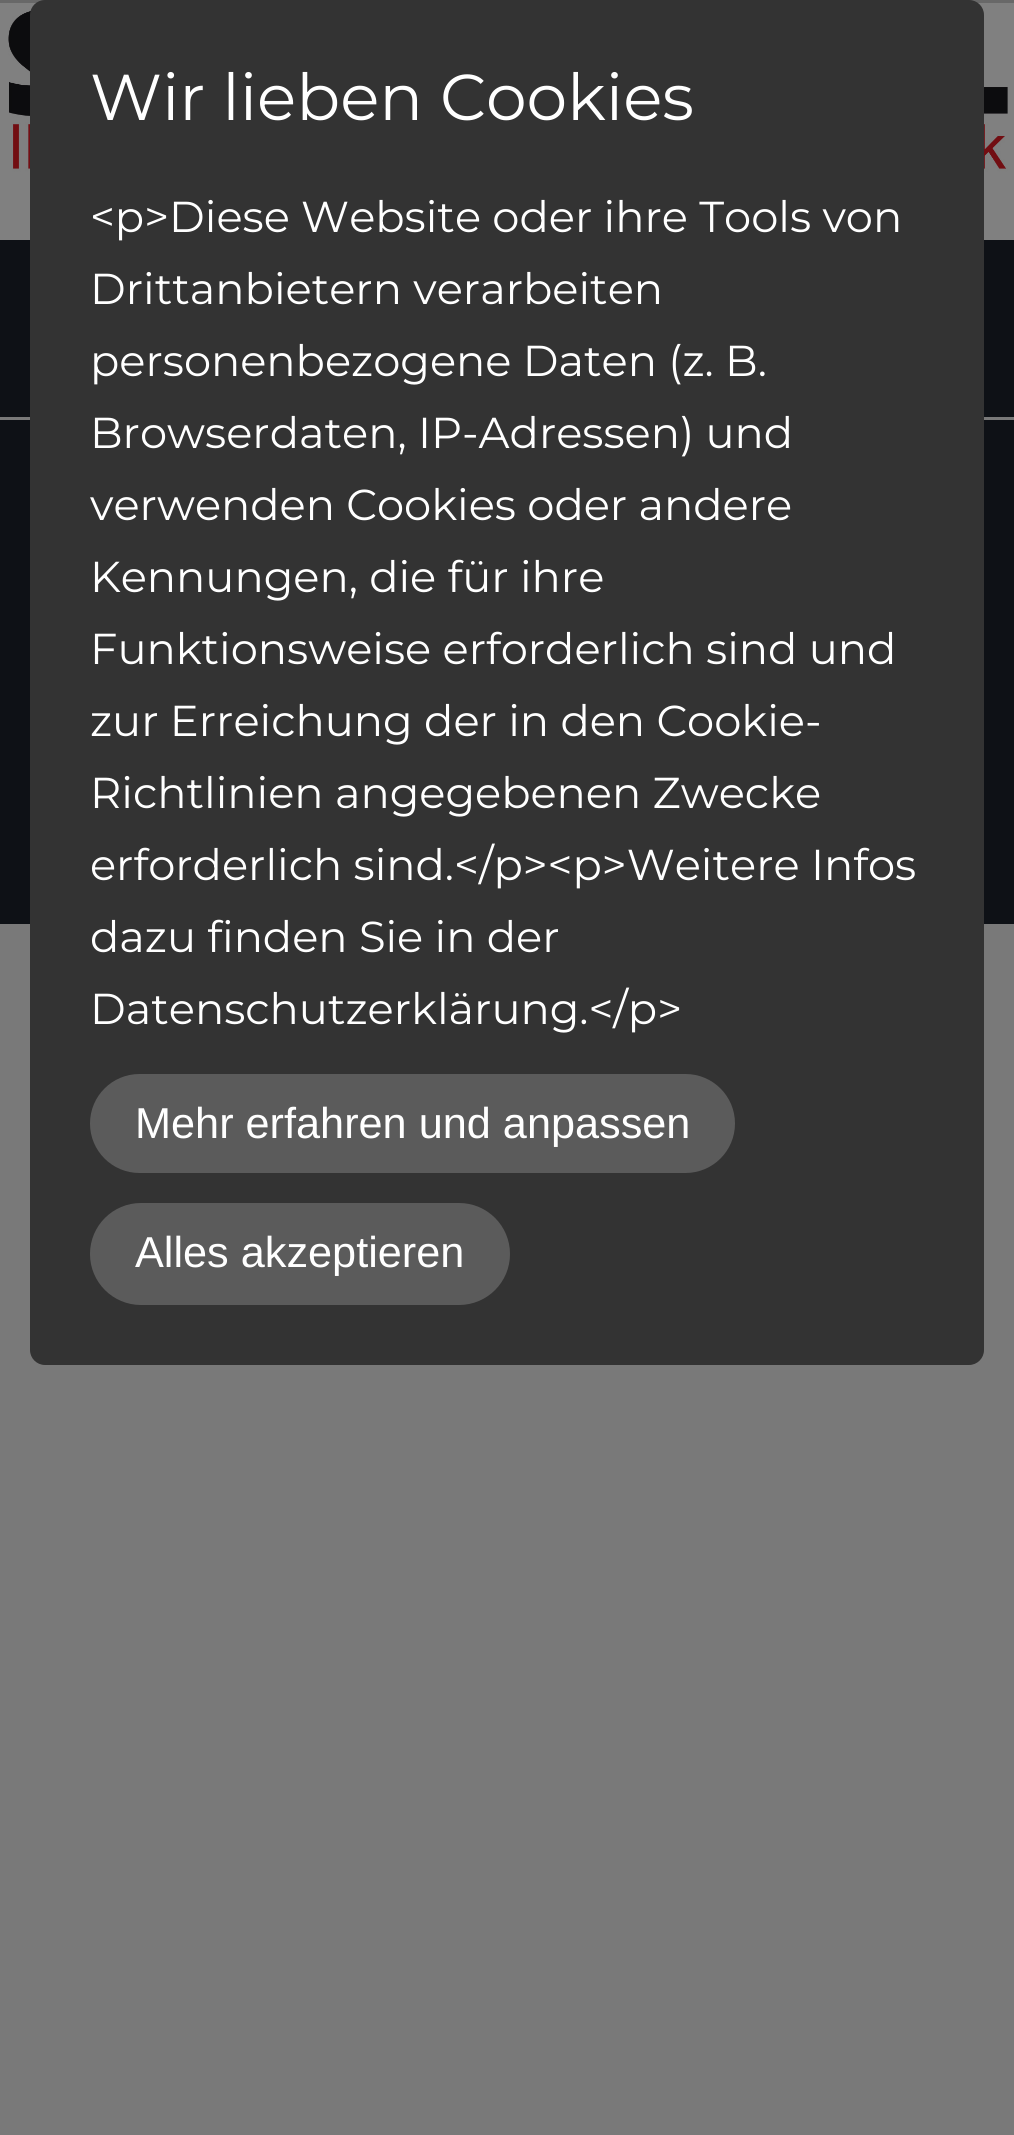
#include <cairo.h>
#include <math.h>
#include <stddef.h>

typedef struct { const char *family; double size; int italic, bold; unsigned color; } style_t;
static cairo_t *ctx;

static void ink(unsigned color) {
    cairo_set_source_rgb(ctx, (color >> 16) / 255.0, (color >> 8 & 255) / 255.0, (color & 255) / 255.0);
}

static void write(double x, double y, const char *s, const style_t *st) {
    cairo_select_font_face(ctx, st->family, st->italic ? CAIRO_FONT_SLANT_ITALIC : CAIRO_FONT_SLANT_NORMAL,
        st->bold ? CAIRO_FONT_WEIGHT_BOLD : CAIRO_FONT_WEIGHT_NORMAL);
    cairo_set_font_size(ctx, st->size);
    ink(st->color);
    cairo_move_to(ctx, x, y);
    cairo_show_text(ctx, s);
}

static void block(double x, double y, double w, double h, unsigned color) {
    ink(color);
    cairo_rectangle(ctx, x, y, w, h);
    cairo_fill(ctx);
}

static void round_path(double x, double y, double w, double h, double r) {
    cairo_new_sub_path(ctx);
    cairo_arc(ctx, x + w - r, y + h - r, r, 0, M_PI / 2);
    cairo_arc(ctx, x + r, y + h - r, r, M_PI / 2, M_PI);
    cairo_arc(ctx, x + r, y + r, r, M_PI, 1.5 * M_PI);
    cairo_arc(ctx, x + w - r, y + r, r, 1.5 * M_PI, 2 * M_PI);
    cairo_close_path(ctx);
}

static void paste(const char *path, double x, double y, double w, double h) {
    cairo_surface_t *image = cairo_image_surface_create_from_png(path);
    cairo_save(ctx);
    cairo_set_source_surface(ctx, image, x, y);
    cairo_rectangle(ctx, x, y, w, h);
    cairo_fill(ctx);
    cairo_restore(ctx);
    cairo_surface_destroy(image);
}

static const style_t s1 = {"Montserrat Thin", 64.75, 0, 0, 0xffffff};
static const style_t s2 = {"Montserrat Thin", 43.25, 0, 0, 0xffffff};
static const style_t s3 = {"Liberation Sans", 43.25, 0, 0, 0xffffff};

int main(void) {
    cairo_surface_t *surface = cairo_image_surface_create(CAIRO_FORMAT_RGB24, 1014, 2135);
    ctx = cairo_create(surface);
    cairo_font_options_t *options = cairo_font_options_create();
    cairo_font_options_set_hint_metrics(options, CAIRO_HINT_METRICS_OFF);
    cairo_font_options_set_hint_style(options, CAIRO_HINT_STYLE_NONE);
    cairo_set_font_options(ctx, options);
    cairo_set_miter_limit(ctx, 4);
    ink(0x797979);
    cairo_paint(ctx);
    block(0, 0, 1014, 3, 0x686868);
    block(0, 3, 1014, 237, 0x808080);
    paste("pic1.png", 8, 9, 1000, 172);
    block(0, 240, 1014, 177, 0x0e1116);
    block(0, 420, 1014, 504, 0x0e1116);
    ink(0x333333);
    round_path(30, 0, 954, 1365, 15);
    cairo_fill(ctx);
    write(90, 120, "Wir lieben Cookies", &s1);
    write(90, 232, "<p>Diese Website oder ihre Tools von", &s2);
    write(90, 304, "Drittanbietern verarbeiten", &s2);
    write(90, 376, "personenbezogene Daten (z. B.", &s2);
    write(90, 448, "Browserdaten, IP-Adressen) und", &s2);
    write(90, 520, "verwenden Cookies oder andere", &s2);
    write(90, 592, "Kennungen, die für ihre", &s2);
    write(90, 664, "Funktionsweise erforderlich sind und", &s2);
    write(90, 736, "zur Erreichung der in den Cookie-", &s2);
    write(90, 808, "Richtlinien angegebenen Zwecke", &s2);
    write(90, 880, "erforderlich sind.</p><p>Weitere Infos", &s2);
    write(90, 952, "dazu finden Sie in der", &s2);
    write(90, 1024, "Datenschutzerklärung.</p>", &s2);
    ink(0x5b5b5b);
    round_path(90, 1074, 645, 99, 49.5);
    cairo_fill(ctx);
    write(135, 1138, "Mehr erfahren und anpassen", &s3);
    ink(0x5b5b5b);
    round_path(90, 1203, 420, 102, 51);
    cairo_fill(ctx);
    write(135, 1267, "Alles akzeptieren", &s3);
    cairo_surface_write_to_png(surface, "screenshot.png");
    cairo_font_options_destroy(options);
    cairo_destroy(ctx);
    cairo_surface_destroy(surface);
    return 0;
}
